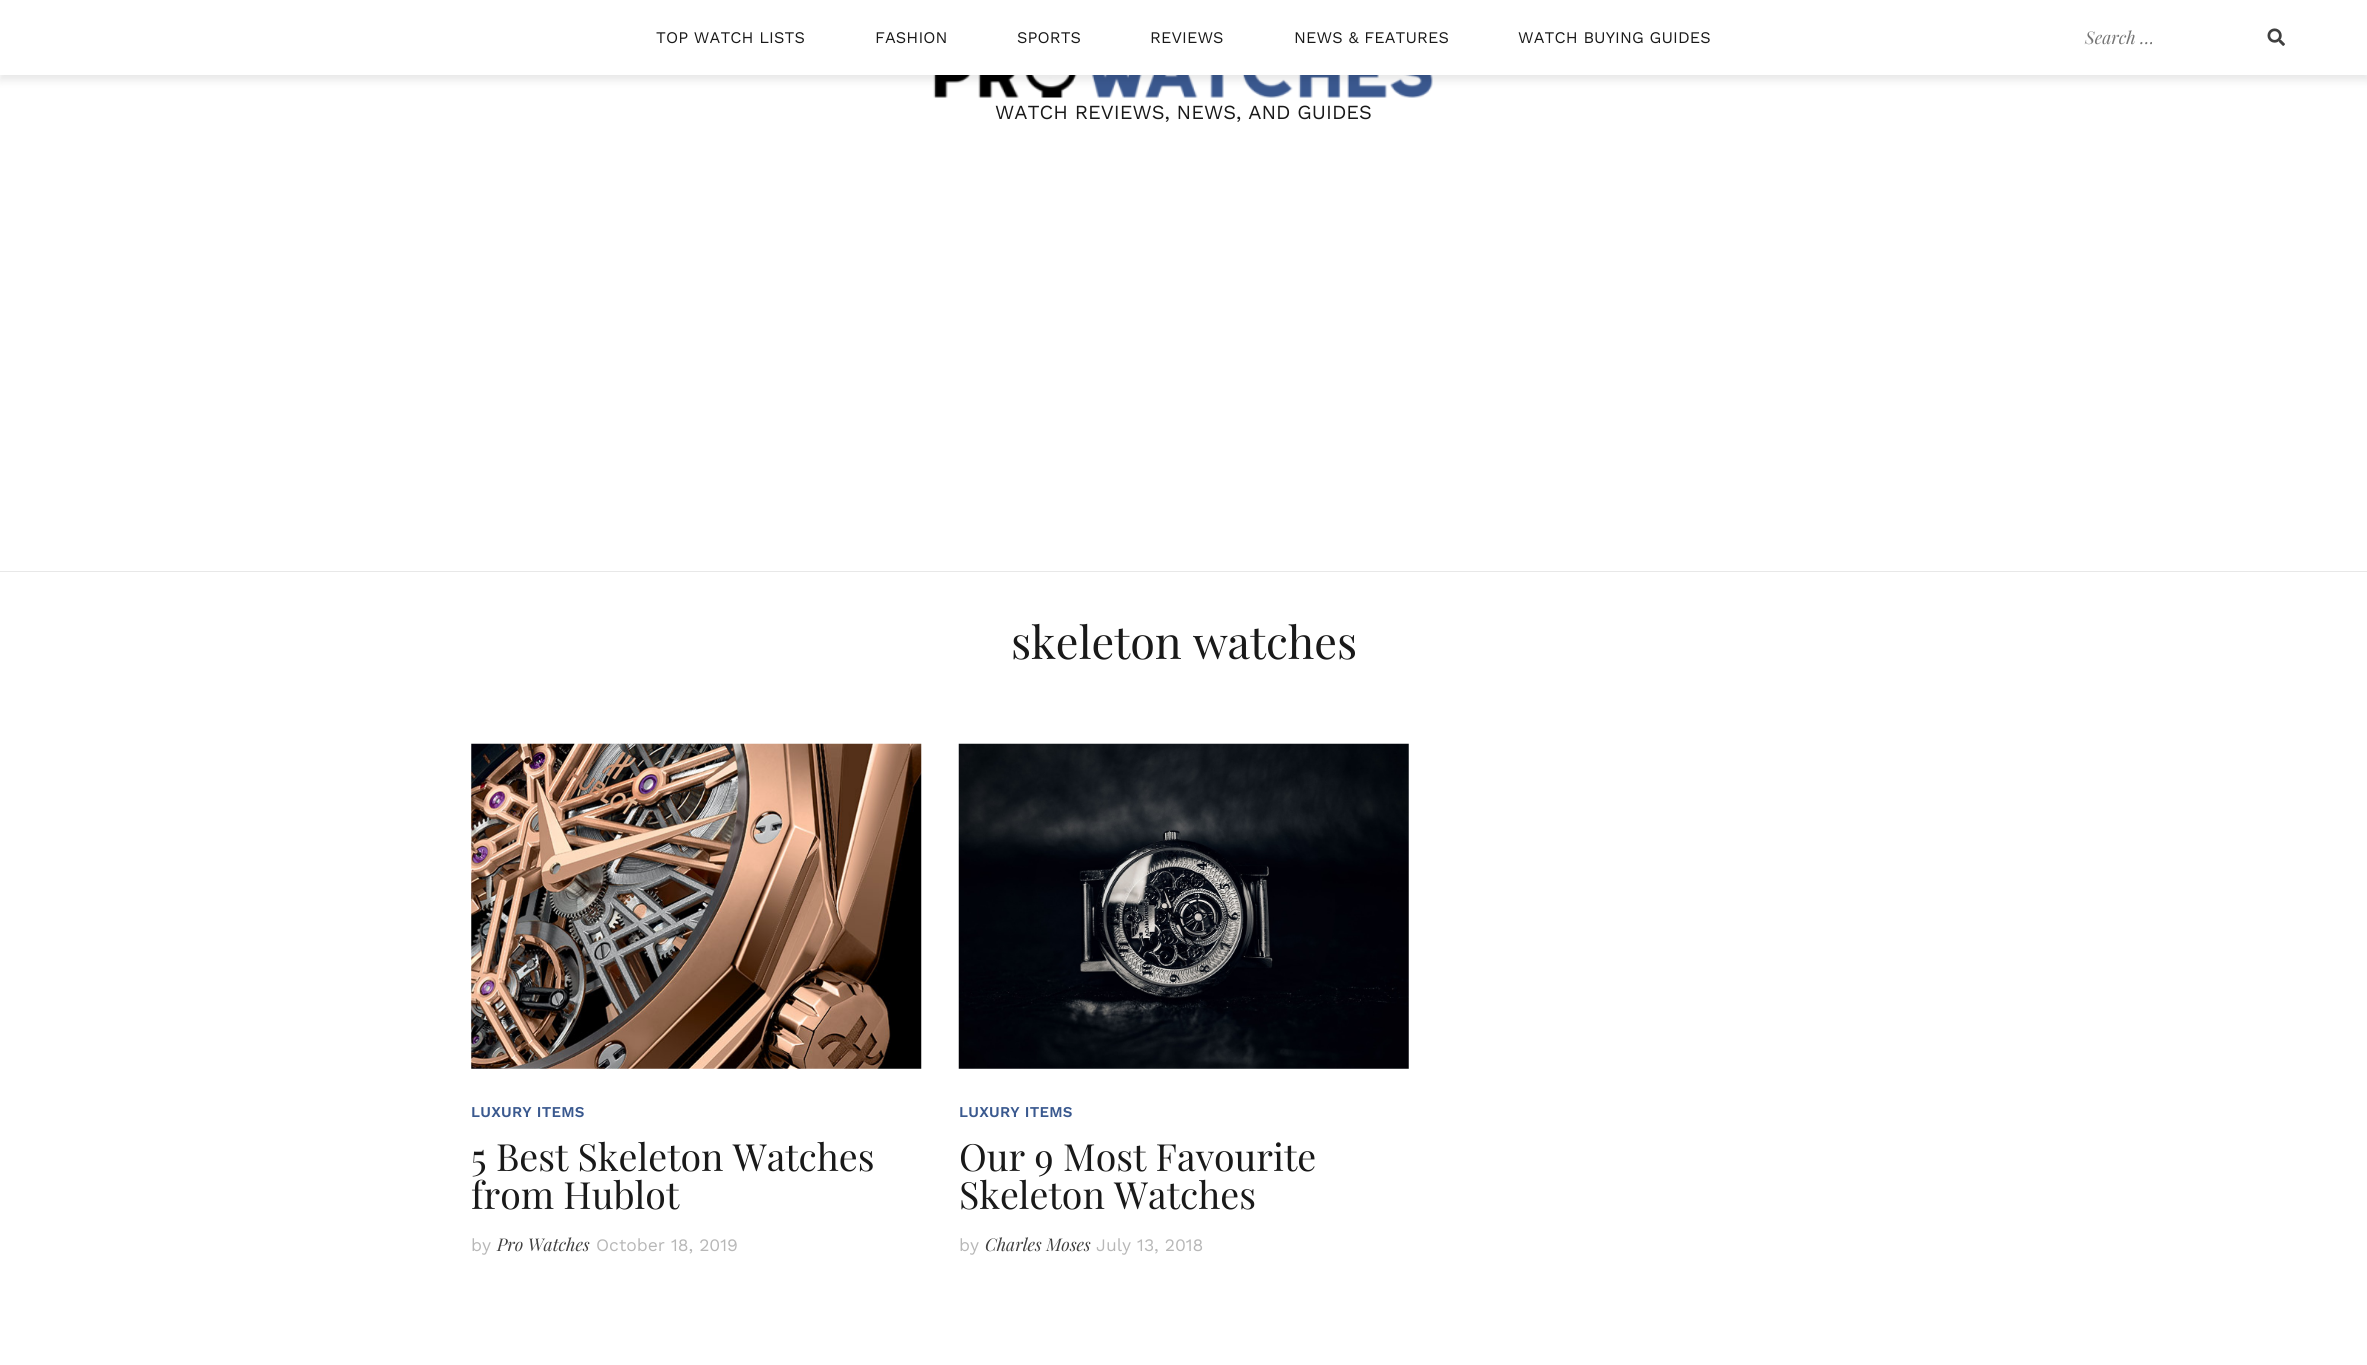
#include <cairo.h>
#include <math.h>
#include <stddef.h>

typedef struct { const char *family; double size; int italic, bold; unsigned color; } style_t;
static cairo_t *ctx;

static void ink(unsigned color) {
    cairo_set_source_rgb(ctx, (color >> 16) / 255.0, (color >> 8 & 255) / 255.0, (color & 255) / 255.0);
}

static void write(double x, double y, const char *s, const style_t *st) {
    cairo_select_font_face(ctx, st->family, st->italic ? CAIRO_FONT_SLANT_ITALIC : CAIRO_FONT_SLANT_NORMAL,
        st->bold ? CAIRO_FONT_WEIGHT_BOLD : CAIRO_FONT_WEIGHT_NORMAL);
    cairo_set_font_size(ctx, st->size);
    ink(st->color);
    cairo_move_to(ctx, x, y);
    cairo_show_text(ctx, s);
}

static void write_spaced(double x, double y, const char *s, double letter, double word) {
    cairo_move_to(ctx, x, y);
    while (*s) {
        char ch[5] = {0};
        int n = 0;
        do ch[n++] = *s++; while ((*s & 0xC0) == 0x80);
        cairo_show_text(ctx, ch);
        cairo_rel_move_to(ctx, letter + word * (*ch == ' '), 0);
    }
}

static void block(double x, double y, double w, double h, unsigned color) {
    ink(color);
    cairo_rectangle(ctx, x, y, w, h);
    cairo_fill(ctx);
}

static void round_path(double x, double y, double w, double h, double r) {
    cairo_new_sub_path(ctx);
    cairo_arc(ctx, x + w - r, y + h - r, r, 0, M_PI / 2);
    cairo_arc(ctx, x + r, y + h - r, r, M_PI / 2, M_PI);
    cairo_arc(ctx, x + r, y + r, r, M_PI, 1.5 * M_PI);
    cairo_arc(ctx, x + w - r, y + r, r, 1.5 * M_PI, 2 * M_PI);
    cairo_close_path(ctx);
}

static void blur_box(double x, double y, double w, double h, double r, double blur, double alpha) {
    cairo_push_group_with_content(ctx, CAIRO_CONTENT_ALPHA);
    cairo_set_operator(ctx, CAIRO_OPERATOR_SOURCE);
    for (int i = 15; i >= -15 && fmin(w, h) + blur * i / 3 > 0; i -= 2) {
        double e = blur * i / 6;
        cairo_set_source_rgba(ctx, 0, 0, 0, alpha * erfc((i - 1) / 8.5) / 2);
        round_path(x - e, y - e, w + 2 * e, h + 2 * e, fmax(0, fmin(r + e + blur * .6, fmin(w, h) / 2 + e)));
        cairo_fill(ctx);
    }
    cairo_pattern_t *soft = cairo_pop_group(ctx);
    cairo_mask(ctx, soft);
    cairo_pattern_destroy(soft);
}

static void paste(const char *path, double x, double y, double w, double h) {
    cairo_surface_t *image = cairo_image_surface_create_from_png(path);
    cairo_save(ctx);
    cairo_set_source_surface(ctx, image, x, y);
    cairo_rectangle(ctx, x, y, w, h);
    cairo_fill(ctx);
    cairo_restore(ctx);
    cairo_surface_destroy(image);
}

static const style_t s1 = {"Playfair Display", 17.5, 1, 0, 0x757575};
static const style_t s2 = {"Work Sans", 20, 0, 0, 0x191919};
static const style_t s3 = {"Playfair Display", 45, 0, 0, 0x191919};
static const style_t s4 = {"Playfair Display", 37.5, 0, 0, 0x191919};
static const style_t s5 = {"Work Sans", 17.5, 0, 0, 0xb7b7b7};
static const style_t s6 = {"Playfair Display", 17.5, 1, 0, 0x404040};

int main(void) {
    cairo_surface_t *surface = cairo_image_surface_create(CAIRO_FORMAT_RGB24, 2367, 1365);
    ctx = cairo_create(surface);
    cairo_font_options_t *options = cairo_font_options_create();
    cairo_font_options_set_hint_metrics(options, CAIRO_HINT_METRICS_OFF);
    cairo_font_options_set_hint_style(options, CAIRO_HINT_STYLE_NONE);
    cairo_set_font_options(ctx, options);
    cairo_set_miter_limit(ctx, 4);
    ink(0xffffff);
    cairo_paint(ctx);
    paste("pic2.png", 933, 75, 500, 23);
    ink(0x000000);
    blur_box(0, 5, 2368, 75, 0, 4.5, 0.1);
    block(0, 0, 2367, 75, 0xffffff);
    cairo_select_font_face(ctx, "Work Sans", CAIRO_FONT_SLANT_NORMAL, CAIRO_FONT_WEIGHT_NORMAL);
    cairo_set_font_size(ctx, 16.25);
    ink(0x191919);
    write_spaced(656, 43, "TOP WATCH LISTS", 0.1, 0);
    write_spaced(875, 43, "FASHION", 0.1, 0);
    write_spaced(1017, 43, "SPORTS", 0.1, 0);
    write_spaced(1150, 43, "REVIEWS", 0.1, 0);
    write_spaced(1294, 43, "NEWS & FEATURES", 0.1, 0);
    write_spaced(1518, 43, "WATCH BUYING GUIDES", 0.1, 0);
    write(2085, 44, "Search …", &s1);
    paste("pic1.png", 2267, 28, 18, 18);
    write(995, 119, "WATCH REVIEWS, NEWS, AND GUIDES", &s2);
    block(0, 571, 2367, 1, 0xe8e8e8);
    write(1011, 659, "skeleton watches", &s3);
    paste("pic3.png", 471, 743, 451, 326);
    cairo_select_font_face(ctx, "Work Sans SemiBold", CAIRO_FONT_SLANT_NORMAL, CAIRO_FONT_WEIGHT_NORMAL);
    cairo_set_font_size(ctx, 15);
    ink(0x3a598f);
    write_spaced(471, 1117, "LUXURY ITEMS", 0.25, 0);
    write(471, 1171, "5 Best Skeleton Watches", &s4);
    write(471, 1209, "from Hublot", &s4);
    write(471, 1251, "by", &s5);
    write(497, 1251, "Pro Watches", &s6);
    write(596, 1251, "October 18, 2019", &s5);
    paste("pic4.png", 958, 743, 451, 326);
    cairo_select_font_face(ctx, "Work Sans SemiBold", CAIRO_FONT_SLANT_NORMAL, CAIRO_FONT_WEIGHT_NORMAL);
    cairo_set_font_size(ctx, 15);
    ink(0x3a598f);
    write_spaced(959, 1117, "LUXURY ITEMS", 0.25, 0);
    write(959, 1171, "Our 9 Most Favourite", &s4);
    write(959, 1209, "Skeleton Watches", &s4);
    write(959, 1251, "by", &s5);
    write(985, 1251, "Charles Moses", &s6);
    write(1096, 1251, "July 13, 2018", &s5);
    cairo_surface_write_to_png(surface, "screenshot.png");
    cairo_font_options_destroy(options);
    cairo_destroy(ctx);
    cairo_surface_destroy(surface);
    return 0;
}
